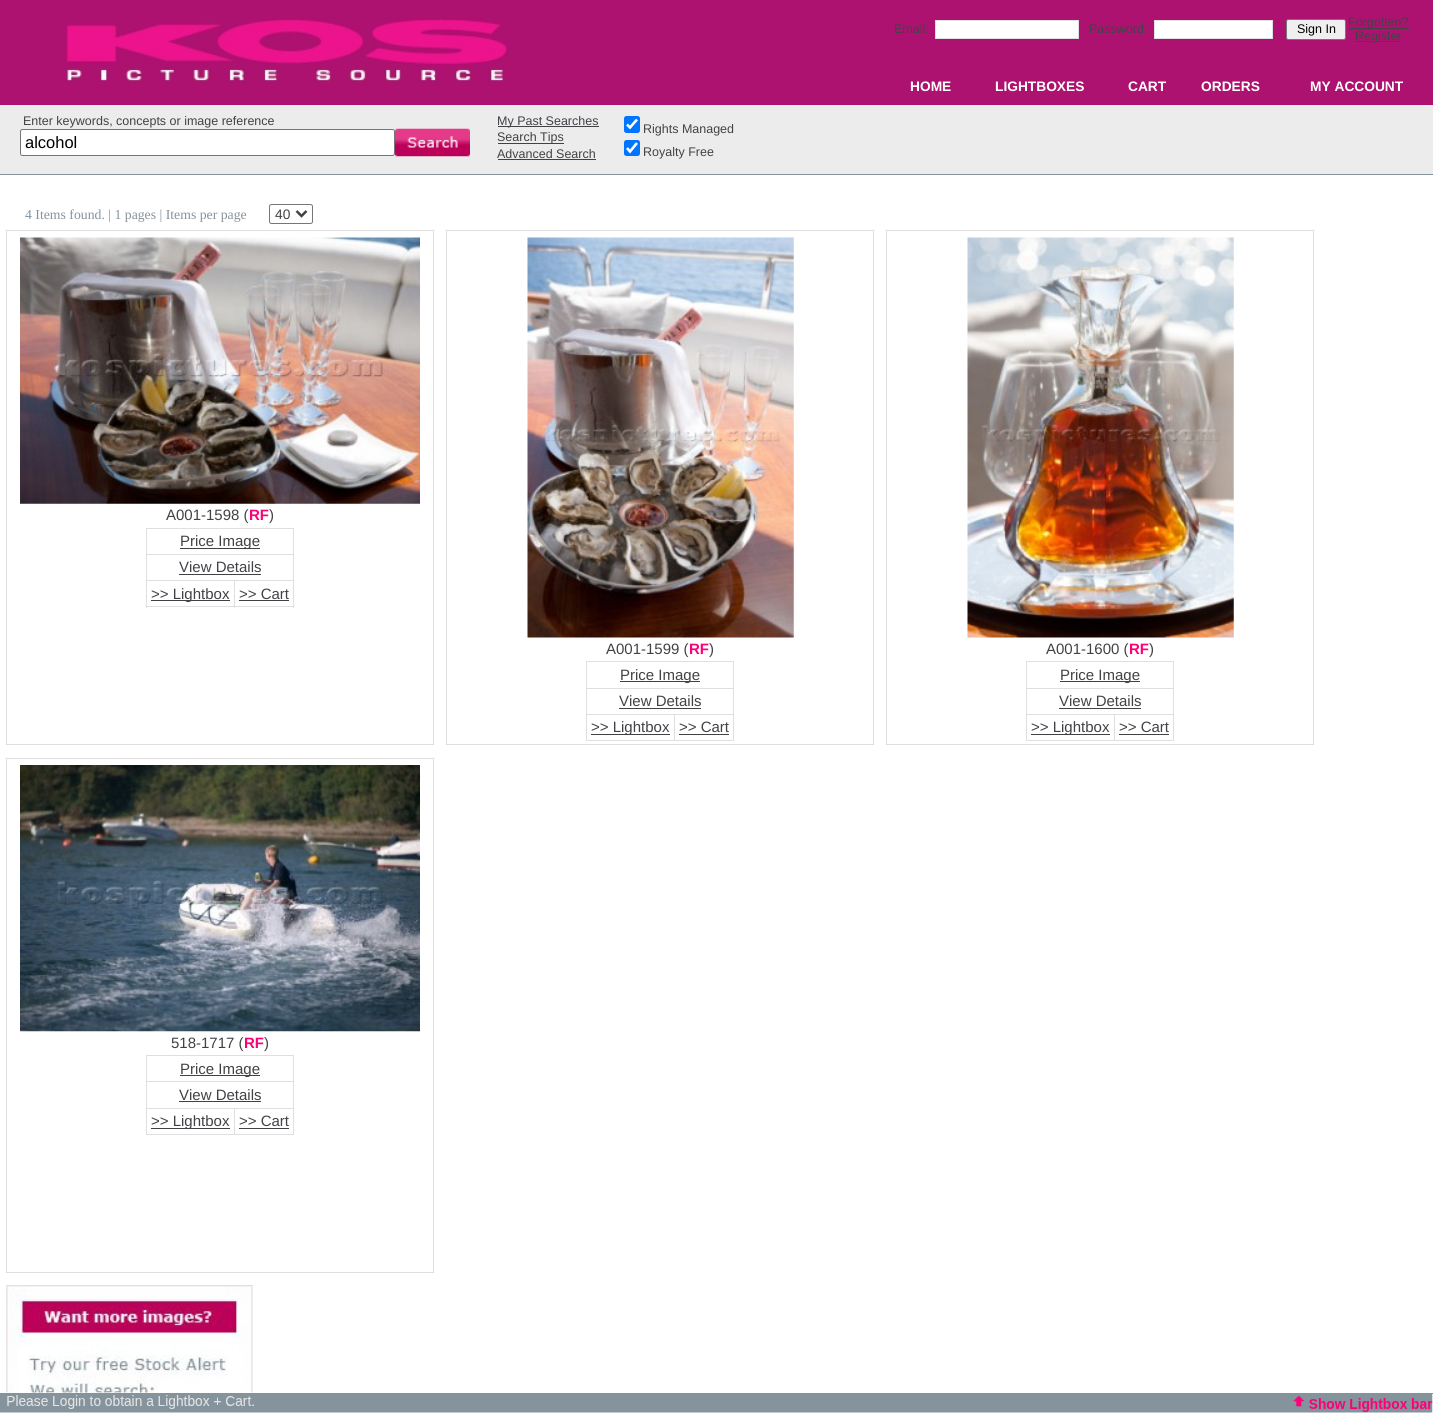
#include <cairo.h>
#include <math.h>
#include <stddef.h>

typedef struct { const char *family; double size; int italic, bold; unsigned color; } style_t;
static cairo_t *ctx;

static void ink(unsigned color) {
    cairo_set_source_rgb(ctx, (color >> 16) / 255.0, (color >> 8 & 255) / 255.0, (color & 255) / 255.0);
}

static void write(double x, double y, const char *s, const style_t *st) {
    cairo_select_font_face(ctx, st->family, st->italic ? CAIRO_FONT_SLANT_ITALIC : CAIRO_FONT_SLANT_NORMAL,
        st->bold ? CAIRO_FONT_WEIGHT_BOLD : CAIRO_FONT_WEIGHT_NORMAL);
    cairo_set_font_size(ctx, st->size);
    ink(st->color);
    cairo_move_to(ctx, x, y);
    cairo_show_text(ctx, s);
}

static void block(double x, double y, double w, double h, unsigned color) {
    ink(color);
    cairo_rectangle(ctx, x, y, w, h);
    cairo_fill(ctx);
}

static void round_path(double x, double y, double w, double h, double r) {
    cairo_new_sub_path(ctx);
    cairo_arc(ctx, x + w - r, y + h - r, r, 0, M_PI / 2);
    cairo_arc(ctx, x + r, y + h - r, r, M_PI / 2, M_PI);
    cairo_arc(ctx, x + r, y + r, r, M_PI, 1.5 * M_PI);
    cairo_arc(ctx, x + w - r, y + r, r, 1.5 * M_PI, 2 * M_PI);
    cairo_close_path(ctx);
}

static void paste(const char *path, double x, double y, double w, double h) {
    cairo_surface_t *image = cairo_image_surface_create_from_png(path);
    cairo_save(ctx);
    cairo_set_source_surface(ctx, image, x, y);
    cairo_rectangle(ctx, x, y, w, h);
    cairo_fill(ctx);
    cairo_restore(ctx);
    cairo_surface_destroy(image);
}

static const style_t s1 = {"Liberation Sans", 12.5, 0, 0, 0x414245};
static const style_t s2 = {"Liberation Sans", 12.5, 0, 0, 0x000000};
static const style_t s3 = {"Liberation Sans", 13.75, 0, 1, 0xffffff};
static const style_t s4 = {"Liberation Sans", 16.5, 0, 0, 0x000000};
static const style_t s5 = {"Liberation Serif", 13.75, 0, 0, 0x85939d};
static const style_t s6 = {"Liberation Sans", 13.75, 0, 0, 0x414245};
static const style_t s7 = {"Liberation Sans", 15, 0, 0, 0x414245};
static const style_t s8 = {"Liberation Sans", 15, 0, 1, 0xfd0078};

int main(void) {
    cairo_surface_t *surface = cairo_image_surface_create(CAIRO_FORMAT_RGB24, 1438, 1417);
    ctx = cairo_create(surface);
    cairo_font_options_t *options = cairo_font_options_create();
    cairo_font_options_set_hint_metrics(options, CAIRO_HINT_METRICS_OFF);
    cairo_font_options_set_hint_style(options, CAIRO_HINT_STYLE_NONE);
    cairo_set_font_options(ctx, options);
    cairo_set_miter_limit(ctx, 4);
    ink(0xffffff);
    cairo_paint(ctx);
    block(0, 0, 1433, 105, 0xae1271);
    paste("pic1.png", 66, 18, 442, 64);
    write(894, 33, "Email:", &s1);
    ink(0xffffff);
    cairo_rectangle(ctx, 935.5, 20.5, 143, 18);
    cairo_fill_preserve(ctx);
    ink(0xdfdfdf);
    cairo_set_line_width(ctx, 1);
    cairo_stroke(ctx);
    write(1089, 33, "Password:", &s1);
    ink(0xffffff);
    cairo_rectangle(ctx, 1154.5, 20.5, 118, 18);
    cairo_fill_preserve(ctx);
    ink(0xdfdfdf);
    cairo_stroke(ctx);
    ink(0xefefef);
    round_path(1286.5, 19.5, 59, 20, 2);
    cairo_fill_preserve(ctx);
    ink(0x767676);
    cairo_stroke(ctx);
    write(1297, 33, "Sign In", &s2);
    block(1349, 28, 60, 1, 0x414245);
    write(1348, 26, "Forgotten?", &s1);
    block(1355, 41, 46, 1, 0x414245);
    write(1355, 40, "Register", &s1);
    write(910, 91, "HOME", &s3);
    write(995, 91, "LIGHTBOXES", &s3);
    write(1128, 91, "CART", &s3);
    write(1201, 91, "ORDERS", &s3);
    write(1310, 91, "MY ACCOUNT", &s3);
    block(0, 105, 1433, 69, 0xececec);
    block(0, 174, 1433, 1, 0x85939d);
    write(23, 125, "Enter keywords, concepts or image reference", &s1);
    ink(0xffffff);
    round_path(20.5, 129.5, 374, 26, 2);
    cairo_fill_preserve(ctx);
    ink(0x767676);
    cairo_stroke(ctx);
    write(25, 148, "alcohol", &s4);
    paste("pic2.png", 395, 128, 75, 29);
    block(498, 126, 101, 1, 0x414245);
    write(497, 125, "My Past Searches", &s1);
    block(498, 143, 66, 1, 0x414245);
    write(497, 141, "Search Tips", &s1);
    write(497, 158, "Advanced Search", &s1);
    block(498, 159, 98, 1, 0x414245);
    ink(0x0075ff);
    round_path(624, 116, 16, 17, 2.5);
    cairo_fill(ctx);
    cairo_new_path(ctx);
    cairo_move_to(ctx, 627, 124.5);
    cairo_line_to(ctx, 630, 127.5);
    cairo_line_to(ctx, 637, 119.5);
    ink(0xffffff);
    cairo_set_line_width(ctx, 2.6);
    cairo_stroke(ctx);
    write(643, 133, "Rights Managed", &s1);
    ink(0x0075ff);
    round_path(624, 140, 16, 16, 2.5);
    cairo_fill(ctx);
    cairo_new_path(ctx);
    cairo_move_to(ctx, 627, 148);
    cairo_line_to(ctx, 630, 151.5);
    cairo_line_to(ctx, 637, 143);
    ink(0xffffff);
    cairo_stroke(ctx);
    write(643, 156, "Royalty Free", &s1);
    write(25, 219, "4 Items found. | 1 pages | Items per page", &s5);
    round_path(269.5, 204.5, 43, 19, 2);
    ink(0x767676);
    cairo_set_line_width(ctx, 1);
    cairo_stroke(ctx);
    cairo_new_path(ctx);
    cairo_move_to(ctx, 296.5, 211);
    cairo_line_to(ctx, 301.5, 216);
    cairo_line_to(ctx, 306.5, 211);
    ink(0x414245);
    cairo_set_line_width(ctx, 2.5);
    cairo_stroke(ctx);
    write(275, 219, "40", &s6);
    cairo_rectangle(ctx, 6.5, 230.5, 427, 514);
    ink(0xdfdfdf);
    cairo_set_line_width(ctx, 1);
    cairo_stroke(ctx);
    paste("pic3.png", 20, 237, 400, 267);
    write(166, 520, "A001-1598 (", &s7);
    write(249, 520, "RF", &s8);
    write(269, 520, ")", &s7);
    block(146, 528, 148, 1, 0xdfdfdf);
    block(293, 528, 1, 80, 0xdfdfdf);
    block(146, 606, 148, 1, 0xdfdfdf);
    block(146, 528, 1, 80, 0xdfdfdf);
    block(180, 548, 80, 1, 0x414245);
    write(180, 546, "Price Image", &s7);
    block(146, 554, 148, 1, 0xdfdfdf);
    write(179, 572, "View Details", &s7);
    block(179, 574, 82, 1, 0x414245);
    block(234, 580, 60, 1, 0xdfdfdf);
    block(234, 580, 1, 28, 0xdfdfdf);
    block(146, 580, 89, 1, 0xdfdfdf);
    block(151, 600, 79, 1, 0x414245);
    write(151, 599, ">> Lightbox", &s7);
    write(239, 599, ">> Cart", &s7);
    block(239, 600, 50, 1, 0x414245);
    cairo_rectangle(ctx, 446.5, 230.5, 427, 514);
    ink(0xdfdfdf);
    cairo_stroke(ctx);
    paste("pic4.png", 527, 237, 267, 401);
    write(606, 654, "A001-1599 (", &s7);
    write(689, 654, "RF", &s8);
    write(709, 654, ")", &s7);
    block(586, 661, 148, 1, 0xdfdfdf);
    block(733, 661, 1, 80, 0xdfdfdf);
    block(586, 740, 148, 1, 0xdfdfdf);
    block(586, 661, 1, 80, 0xdfdfdf);
    block(620, 681, 80, 1, 0x414245);
    write(620, 680, "Price Image", &s7);
    block(586, 688, 148, 1, 0xdfdfdf);
    write(619, 706, "View Details", &s7);
    block(619, 708, 82, 1, 0x414245);
    block(674, 714, 60, 1, 0xdfdfdf);
    block(674, 714, 1, 27, 0xdfdfdf);
    block(586, 714, 89, 1, 0xdfdfdf);
    block(591, 734, 79, 1, 0x414245);
    write(591, 732, ">> Lightbox", &s7);
    write(679, 732, ">> Cart", &s7);
    block(679, 734, 50, 1, 0x414245);
    cairo_rectangle(ctx, 886.5, 230.5, 427, 514);
    ink(0xdfdfdf);
    cairo_stroke(ctx);
    paste("pic5.png", 967, 237, 267, 401);
    write(1046, 654, "A001-1600 (", &s7);
    write(1129, 654, "RF", &s8);
    write(1149, 654, ")", &s7);
    block(1026, 661, 148, 1, 0xdfdfdf);
    block(1173, 661, 1, 80, 0xdfdfdf);
    block(1026, 740, 148, 1, 0xdfdfdf);
    block(1026, 661, 1, 80, 0xdfdfdf);
    block(1060, 681, 80, 1, 0x414245);
    write(1060, 680, "Price Image", &s7);
    block(1026, 688, 148, 1, 0xdfdfdf);
    write(1059, 706, "View Details", &s7);
    block(1059, 708, 82, 1, 0x414245);
    block(1114, 714, 60, 1, 0xdfdfdf);
    block(1114, 714, 1, 27, 0xdfdfdf);
    block(1026, 714, 89, 1, 0xdfdfdf);
    block(1031, 734, 79, 1, 0x414245);
    write(1031, 732, ">> Lightbox", &s7);
    write(1119, 732, ">> Cart", &s7);
    block(1119, 734, 50, 1, 0x414245);
    cairo_rectangle(ctx, 6.5, 758.5, 427, 514);
    ink(0xdfdfdf);
    cairo_stroke(ctx);
    paste("pic6.png", 20, 765, 400, 267);
    write(171, 1048, "518-1717 (", &s7);
    write(244, 1048, "RF", &s8);
    write(264, 1048, ")", &s7);
    block(146, 1055, 148, 1, 0xdfdfdf);
    block(293, 1055, 1, 80, 0xdfdfdf);
    block(146, 1134, 148, 1, 0xdfdfdf);
    block(146, 1055, 1, 80, 0xdfdfdf);
    block(180, 1075, 80, 1, 0x414245);
    write(180, 1074, "Price Image", &s7);
    block(146, 1081, 148, 1, 0xdfdfdf);
    write(179, 1100, "View Details", &s7);
    block(179, 1101, 82, 1, 0x414245);
    block(234, 1108, 60, 1, 0xdfdfdf);
    block(234, 1108, 1, 27, 0xdfdfdf);
    block(146, 1108, 89, 1, 0xdfdfdf);
    block(151, 1128, 79, 1, 0x414245);
    write(151, 1126, ">> Lightbox", &s7);
    write(239, 1126, ">> Cart", &s7);
    block(239, 1128, 50, 1, 0x414245);
    paste("pic7.png", 6, 1285, 247, 108);
    block(0, 1393, 1433, 1, 0x85939d);
    paste("pic8.png", 0, 1394, 1433, 19);
    cairo_surface_write_to_png(surface, "screenshot.png");
    cairo_font_options_destroy(options);
    cairo_destroy(ctx);
    cairo_surface_destroy(surface);
    return 0;
}
